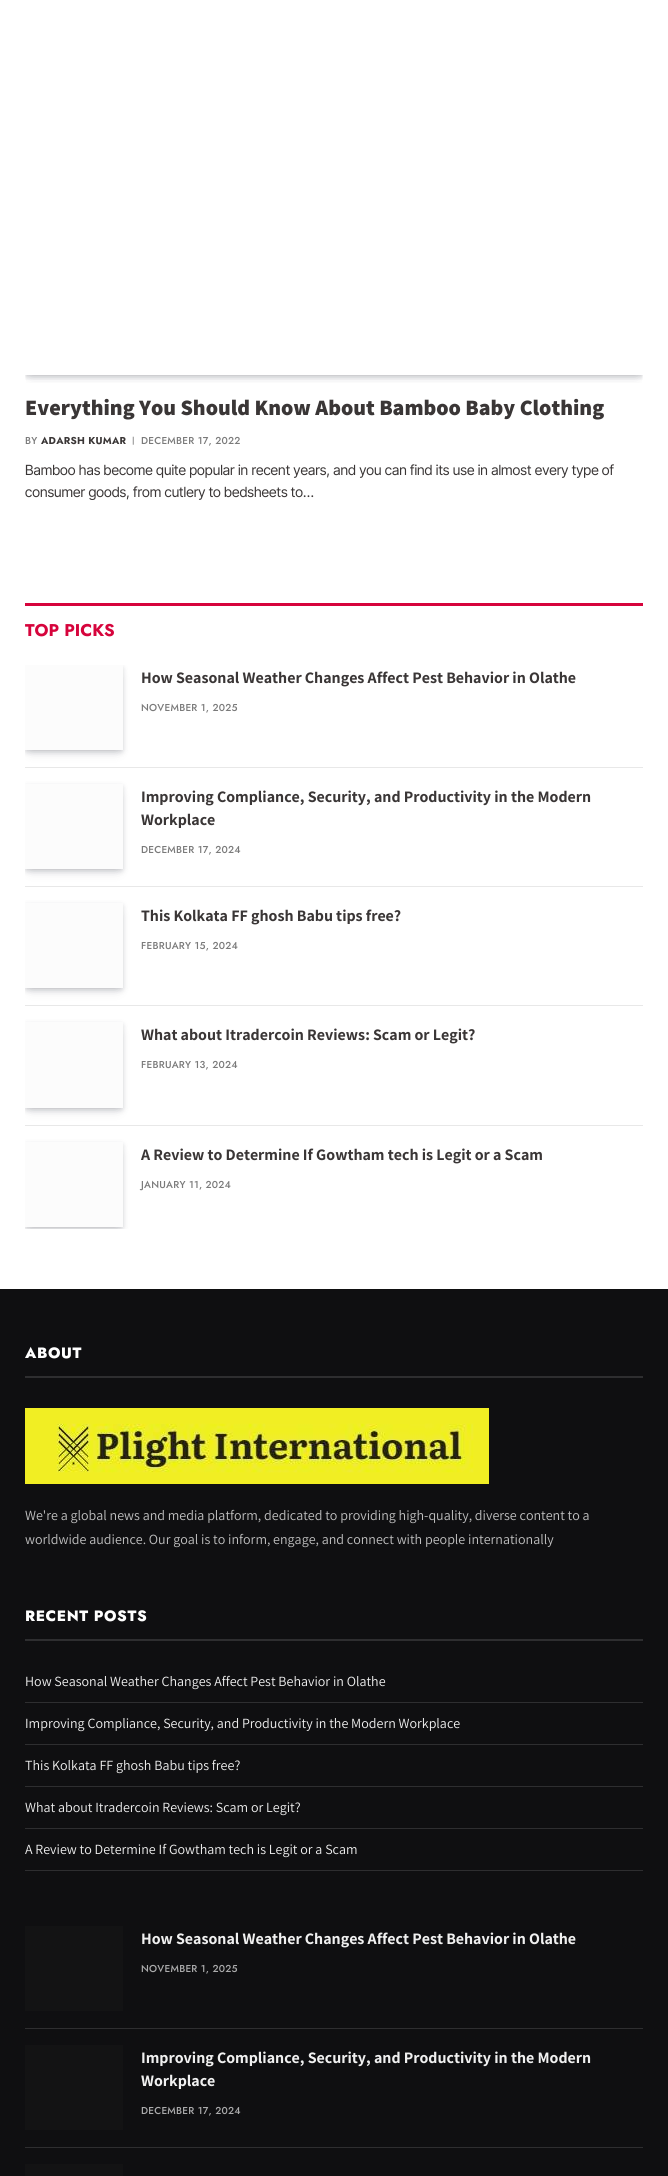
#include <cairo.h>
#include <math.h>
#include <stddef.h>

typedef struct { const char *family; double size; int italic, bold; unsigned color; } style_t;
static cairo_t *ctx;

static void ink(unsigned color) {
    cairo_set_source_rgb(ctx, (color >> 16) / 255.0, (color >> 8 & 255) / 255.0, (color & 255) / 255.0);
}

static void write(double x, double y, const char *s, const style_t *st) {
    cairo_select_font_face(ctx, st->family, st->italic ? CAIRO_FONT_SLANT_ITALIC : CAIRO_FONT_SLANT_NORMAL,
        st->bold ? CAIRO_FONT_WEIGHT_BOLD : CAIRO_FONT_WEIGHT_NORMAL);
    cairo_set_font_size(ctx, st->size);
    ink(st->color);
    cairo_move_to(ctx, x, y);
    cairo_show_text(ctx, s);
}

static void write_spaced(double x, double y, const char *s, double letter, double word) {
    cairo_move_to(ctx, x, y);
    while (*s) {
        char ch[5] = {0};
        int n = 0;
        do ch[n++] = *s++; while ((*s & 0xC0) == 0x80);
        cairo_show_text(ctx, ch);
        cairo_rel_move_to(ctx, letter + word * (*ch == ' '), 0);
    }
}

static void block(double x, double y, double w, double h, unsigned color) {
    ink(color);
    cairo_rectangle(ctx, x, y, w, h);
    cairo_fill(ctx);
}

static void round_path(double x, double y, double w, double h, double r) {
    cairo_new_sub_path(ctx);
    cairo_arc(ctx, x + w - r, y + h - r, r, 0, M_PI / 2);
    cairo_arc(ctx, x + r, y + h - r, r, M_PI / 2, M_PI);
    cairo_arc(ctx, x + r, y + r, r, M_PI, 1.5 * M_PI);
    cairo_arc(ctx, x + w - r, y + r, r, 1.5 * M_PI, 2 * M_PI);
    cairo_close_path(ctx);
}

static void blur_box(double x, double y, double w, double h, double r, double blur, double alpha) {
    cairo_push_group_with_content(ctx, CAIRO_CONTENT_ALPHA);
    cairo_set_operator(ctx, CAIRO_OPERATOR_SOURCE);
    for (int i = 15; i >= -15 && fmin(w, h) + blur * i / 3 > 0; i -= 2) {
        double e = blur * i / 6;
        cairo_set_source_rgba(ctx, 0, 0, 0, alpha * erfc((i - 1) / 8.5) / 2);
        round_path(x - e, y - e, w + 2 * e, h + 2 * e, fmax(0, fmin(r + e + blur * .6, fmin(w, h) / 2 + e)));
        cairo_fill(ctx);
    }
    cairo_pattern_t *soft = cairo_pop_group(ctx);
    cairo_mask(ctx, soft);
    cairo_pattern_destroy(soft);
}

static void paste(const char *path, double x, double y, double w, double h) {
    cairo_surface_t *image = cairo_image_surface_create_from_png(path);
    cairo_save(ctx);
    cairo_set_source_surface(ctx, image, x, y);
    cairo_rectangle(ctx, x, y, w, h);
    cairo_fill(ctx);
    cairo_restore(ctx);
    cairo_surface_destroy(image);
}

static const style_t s1 = {"Assistant ExtraBold", 22, 0, 0, 0x3a3636};
static const style_t s2 = {"Jost Medium", 8, 0, 0, 0x7a7a7a};
static const style_t s3 = {"Inter Tight", 14, 0, 0, 0x3a3636};
static const style_t s4 = {"Jost", 17, 0, 1, 0xd6043c};
static const style_t s5 = {"Assistant", 16, 0, 1, 0x3a3636};
static const style_t s6 = {"Assistant", 14, 0, 0, 0xc0c0c0};
static const style_t s7 = {"Assistant", 14, 0, 0, 0xf0f0f0};
static const style_t s8 = {"Assistant", 16, 0, 1, 0xf0f0f0};

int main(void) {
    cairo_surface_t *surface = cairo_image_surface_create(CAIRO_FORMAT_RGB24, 668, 2176);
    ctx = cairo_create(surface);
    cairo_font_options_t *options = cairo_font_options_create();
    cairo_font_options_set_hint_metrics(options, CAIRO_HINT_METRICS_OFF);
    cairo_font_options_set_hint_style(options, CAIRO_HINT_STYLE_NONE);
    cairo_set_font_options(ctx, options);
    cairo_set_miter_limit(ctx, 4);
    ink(0xffffff);
    cairo_paint(ctx);
    cairo_save(ctx);
    cairo_rectangle(ctx, 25, 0, 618, 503);
    cairo_clip(ctx);
    cairo_rectangle(ctx, 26, 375, 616, 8);
    cairo_clip(ctx);
    ink(0x070a19);
    blur_box(31, -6, 606, 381, 0, 6, 0.2);
    cairo_restore(ctx);
    cairo_save(ctx);
    cairo_rectangle(ctx, 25, 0, 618, 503);
    cairo_clip(ctx);
    cairo_rectangle(ctx, 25, 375, 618, 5);
    cairo_clip(ctx);
    ink(0x070a19);
    blur_box(26, -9, 616, 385, 0, 3, 0.2);
    cairo_restore(ctx);
    write(25, 415, "Everything You Should Know About Bamboo Baby Clothing", &s1);
    cairo_select_font_face(ctx, "Jost Medium", CAIRO_FONT_SLANT_NORMAL, CAIRO_FONT_WEIGHT_NORMAL);
    cairo_set_font_size(ctx, 10);
    ink(0x7a7a7a);
    write_spaced(25, 444, "BY", 0.25, 0);
    cairo_select_font_face(ctx, "Jost", CAIRO_FONT_SLANT_NORMAL, CAIRO_FONT_WEIGHT_BOLD);
    ink(0x3a3636);
    write_spaced(41, 444, "ADARSH KUMAR", 0.25, 0);
    write(132, 443, "|", &s2);
    cairo_set_font_size(ctx, 10);
    write_spaced(141, 444, "DECEMBER 17, 2022", 0.25, 0);
    write(25, 475, "Bamboo has become quite popular in recent years, and you can find its use in almost every type of", &s3);
    write(25, 497, "consumer goods, from cutlery to bedsheets to…", &s3);
    block(25, 603, 618, 3, 0xd6043c);
    write(25, 636, "TOP PICKS", &s4);
    cairo_save(ctx);
    cairo_rectangle(ctx, 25, 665, 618, 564);
    cairo_clip(ctx);
    ink(0x070a19);
    blur_box(31, 677, 86, 73, 0, 6, 0.2);
    blur_box(26, 668, 96, 83, 0, 3, 0.2);
    cairo_restore(ctx);
    block(25, 665, 98, 85, 0xfcfcfc);
    write(141, 683, "How Seasonal Weather Changes Affect Pest Behavior in Olathe", &s5);
    cairo_select_font_face(ctx, "Jost Medium", CAIRO_FONT_SLANT_NORMAL, CAIRO_FONT_WEIGHT_NORMAL);
    cairo_set_font_size(ctx, 10);
    ink(0x7a7a7a);
    write_spaced(141, 711, "NOVEMBER 1, 2025", 0.25, 0);
    block(25, 767, 618, 1, 0xe8e8e8);
    cairo_save(ctx);
    cairo_rectangle(ctx, 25, 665, 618, 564);
    cairo_clip(ctx);
    ink(0x070a19);
    blur_box(31, 796, 86, 73, 0, 6, 0.2);
    blur_box(26, 787, 96, 83, 0, 3, 0.2);
    cairo_restore(ctx);
    block(25, 784, 98, 85, 0xfcfcfc);
    write(141, 802, "Improving Compliance, Security, and Productivity in the Modern", &s5);
    write(141, 825, "Workplace", &s5);
    cairo_select_font_face(ctx, "Jost Medium", CAIRO_FONT_SLANT_NORMAL, CAIRO_FONT_WEIGHT_NORMAL);
    cairo_set_font_size(ctx, 10);
    ink(0x7a7a7a);
    write_spaced(141, 853, "DECEMBER 17, 2024", 0.25, 0);
    block(25, 886, 618, 1, 0xe8e8e8);
    cairo_save(ctx);
    cairo_rectangle(ctx, 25, 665, 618, 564);
    cairo_clip(ctx);
    ink(0x070a19);
    blur_box(31, 915, 86, 73, 0, 6, 0.2);
    blur_box(26, 906, 96, 83, 0, 3, 0.2);
    cairo_restore(ctx);
    block(25, 903, 98, 85, 0xfcfcfc);
    write(141, 921, "This Kolkata FF ghosh Babu tips free?", &s5);
    cairo_select_font_face(ctx, "Jost Medium", CAIRO_FONT_SLANT_NORMAL, CAIRO_FONT_WEIGHT_NORMAL);
    cairo_set_font_size(ctx, 10);
    ink(0x7a7a7a);
    write_spaced(141, 949, "FEBRUARY 15, 2024", 0.25, 0);
    block(25, 1005, 618, 1, 0xe8e8e8);
    cairo_save(ctx);
    cairo_rectangle(ctx, 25, 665, 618, 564);
    cairo_clip(ctx);
    ink(0x070a19);
    blur_box(31, 1034, 86, 74, 0, 6, 0.2);
    blur_box(26, 1025, 96, 84, 0, 3, 0.2);
    cairo_restore(ctx);
    block(25, 1022, 98, 86, 0xfcfcfc);
    write(141, 1040, "What about Itradercoin Reviews: Scam or Legit?", &s5);
    cairo_select_font_face(ctx, "Jost Medium", CAIRO_FONT_SLANT_NORMAL, CAIRO_FONT_WEIGHT_NORMAL);
    cairo_set_font_size(ctx, 10);
    ink(0x7a7a7a);
    write_spaced(141, 1068, "FEBRUARY 13, 2024", 0.25, 0);
    block(25, 1125, 618, 1, 0xe8e8e8);
    cairo_save(ctx);
    cairo_rectangle(ctx, 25, 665, 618, 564);
    cairo_clip(ctx);
    ink(0x070a19);
    blur_box(31, 1154, 86, 73, 0, 6, 0.2);
    blur_box(26, 1145, 96, 83, 0, 3, 0.2);
    cairo_restore(ctx);
    block(25, 1142, 98, 85, 0xfcfcfc);
    write(141, 1160, "A Review to Determine If Gowtham tech is Legit or a Scam", &s5);
    cairo_select_font_face(ctx, "Jost Medium", CAIRO_FONT_SLANT_NORMAL, CAIRO_FONT_WEIGHT_NORMAL);
    cairo_set_font_size(ctx, 10);
    ink(0x7a7a7a);
    write_spaced(141, 1188, "JANUARY 11, 2024", 0.25, 0);
    block(0, 1289, 668, 887, 0x0f0f11);
    block(25, 1376, 618, 2, 0x2e2e30);
    cairo_select_font_face(ctx, "Jost ExtraBold", CAIRO_FONT_SLANT_NORMAL, CAIRO_FONT_WEIGHT_NORMAL);
    cairo_set_font_size(ctx, 15);
    ink(0xffffff);
    write_spaced(25, 1358, "ABOUT", 0.6, 0);
    paste("pic1.png", 25, 1408, 464, 76);
    write(25, 1520, "We're a global news and media platform, dedicated to providing high-quality, diverse content to a", &s6);
    write(25, 1544, "worldwide audience. Our goal is to inform, engage, and connect with people internationally", &s6);
    block(25, 1639, 618, 2, 0x2e2e30);
    cairo_select_font_face(ctx, "Jost ExtraBold", CAIRO_FONT_SLANT_NORMAL, CAIRO_FONT_WEIGHT_NORMAL);
    cairo_set_font_size(ctx, 15);
    ink(0xffffff);
    write_spaced(25, 1621, "RECENT POSTS", 0.6, 0);
    block(25, 1702, 618, 1, 0x2e2e30);
    write(25, 1686, "How Seasonal Weather Changes Affect Pest Behavior in Olathe", &s7);
    block(25, 1744, 618, 1, 0x2e2e30);
    write(25, 1728, "Improving Compliance, Security, and Productivity in the Modern Workplace", &s7);
    block(25, 1786, 618, 1, 0x2e2e30);
    write(25, 1770, "This Kolkata FF ghosh Babu tips free?", &s7);
    block(25, 1828, 618, 1, 0x2e2e30);
    write(25, 1812, "What about Itradercoin Reviews: Scam or Legit?", &s7);
    block(25, 1870, 618, 1, 0x2e2e30);
    write(25, 1854, "A Review to Determine If Gowtham tech is Legit or a Scam", &s7);
    block(25, 1926, 98, 85, 0x131314);
    write(141, 1944, "How Seasonal Weather Changes Affect Pest Behavior in Olathe", &s8);
    cairo_select_font_face(ctx, "Jost Medium", CAIRO_FONT_SLANT_NORMAL, CAIRO_FONT_WEIGHT_NORMAL);
    cairo_set_font_size(ctx, 10);
    ink(0xababac);
    write_spaced(141, 1972, "NOVEMBER 1, 2025", 0.25, 0);
    block(25, 2028, 618, 1, 0x2e2e30);
    block(25, 2045, 98, 85, 0x131314);
    write(141, 2063, "Improving Compliance, Security, and Productivity in the Modern", &s8);
    write(141, 2086, "Workplace", &s8);
    cairo_select_font_face(ctx, "Jost Medium", CAIRO_FONT_SLANT_NORMAL, CAIRO_FONT_WEIGHT_NORMAL);
    cairo_set_font_size(ctx, 10);
    ink(0xababac);
    write_spaced(141, 2114, "DECEMBER 17, 2024", 0.25, 0);
    block(25, 2147, 618, 1, 0x2e2e30);
    block(25, 2164, 98, 12, 0x131314);
    cairo_surface_write_to_png(surface, "screenshot.png");
    cairo_font_options_destroy(options);
    cairo_destroy(ctx);
    cairo_surface_destroy(surface);
    return 0;
}
